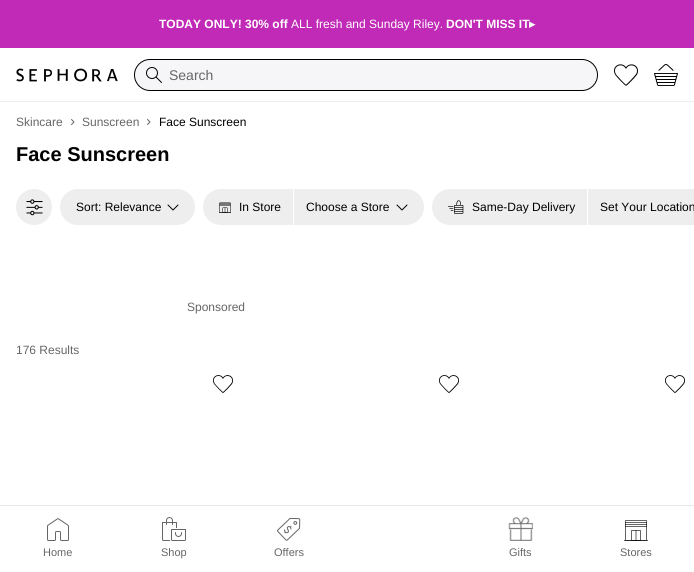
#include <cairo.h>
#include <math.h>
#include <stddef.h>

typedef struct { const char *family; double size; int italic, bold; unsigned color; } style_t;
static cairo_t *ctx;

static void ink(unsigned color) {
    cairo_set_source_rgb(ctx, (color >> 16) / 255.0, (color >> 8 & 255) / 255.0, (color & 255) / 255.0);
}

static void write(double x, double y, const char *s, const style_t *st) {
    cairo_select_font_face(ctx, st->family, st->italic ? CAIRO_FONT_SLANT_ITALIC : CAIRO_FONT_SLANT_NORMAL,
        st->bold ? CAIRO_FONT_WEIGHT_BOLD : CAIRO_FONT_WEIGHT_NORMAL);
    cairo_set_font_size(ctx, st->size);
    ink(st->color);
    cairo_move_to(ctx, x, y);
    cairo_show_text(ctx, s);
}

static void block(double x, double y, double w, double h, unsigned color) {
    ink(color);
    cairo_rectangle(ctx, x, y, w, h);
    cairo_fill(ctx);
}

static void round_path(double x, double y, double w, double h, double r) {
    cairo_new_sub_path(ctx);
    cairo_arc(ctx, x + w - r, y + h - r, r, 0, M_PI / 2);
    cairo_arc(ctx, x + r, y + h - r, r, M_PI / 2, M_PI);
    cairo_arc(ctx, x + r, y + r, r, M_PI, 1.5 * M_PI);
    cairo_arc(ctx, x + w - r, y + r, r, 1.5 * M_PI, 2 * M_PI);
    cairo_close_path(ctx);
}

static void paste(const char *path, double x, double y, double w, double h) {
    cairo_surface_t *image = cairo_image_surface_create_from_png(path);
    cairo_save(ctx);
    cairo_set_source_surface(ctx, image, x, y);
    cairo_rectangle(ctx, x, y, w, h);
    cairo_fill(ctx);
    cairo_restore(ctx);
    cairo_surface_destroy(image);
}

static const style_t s1 = {"Liberation Sans", 12, 0, 1, 0xffffff};
static const style_t s2 = {"Liberation Sans", 12, 0, 0, 0xffffff};
static const style_t s3 = {"DejaVu Sans", 12, 0, 1, 0xffffff};
static const style_t s4 = {"Liberation Sans", 14, 0, 0, 0x666666};
static const style_t s5 = {"Liberation Sans", 11, 0, 0, 0x666666};
static const style_t s6 = {"Liberation Sans", 12, 0, 0, 0x666666};
static const style_t s7 = {"Liberation Sans", 12, 0, 0, 0x000000};
static const style_t s8 = {"Liberation Sans", 20, 0, 1, 0x000000};

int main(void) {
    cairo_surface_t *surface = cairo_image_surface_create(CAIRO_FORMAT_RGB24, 694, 572);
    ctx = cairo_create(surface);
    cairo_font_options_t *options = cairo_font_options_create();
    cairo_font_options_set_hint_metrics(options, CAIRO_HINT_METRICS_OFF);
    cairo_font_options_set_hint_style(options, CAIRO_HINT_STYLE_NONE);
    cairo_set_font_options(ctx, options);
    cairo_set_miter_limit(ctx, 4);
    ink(0xffffff);
    cairo_paint(ctx);
    block(0, 0, 694, 48, 0xc12ab7);
    write(159, 28, "TODAY ONLY! 30% off", &s1);
    write(291, 28, "ALL fresh and Sunday Riley.", &s2);
    write(446, 28, "DON'T MISS IT", &s1);
    write(529, 28, "▸", &s3);
    block(0, 101, 694, 1, 0xeeeeee);
    paste("pic1.png", 16, 68, 102, 14);
    ink(0xf6f6f8);
    round_path(134.5, 59.5, 463, 31, 15.5);
    cairo_fill_preserve(ctx);
    ink(0x000000);
    cairo_set_line_width(ctx, 1);
    cairo_stroke(ctx);
    paste("pic2.png", 146, 67, 16, 16);
    write(169, 80, "Search", &s4);
    paste("pic3.png", 614, 64, 24, 22);
    paste("pic4.png", 654, 64, 24, 22);
    block(0, 505, 694, 1, 0xe6e6e6);
    paste("pic5.png", 47, 518, 22, 23);
    write(43, 556, "Home", &s5);
    paste("pic6.png", 162, 517, 24, 24);
    write(161, 556, "Shop", &s5);
    paste("pic7.png", 277, 517, 24, 24);
    write(274, 556, "Offers", &s5);
    paste("pic8.png", 508, 517, 25, 24);
    write(509, 556, "Gifts", &s5);
    paste("pic9.png", 624, 520, 24, 21);
    write(620, 556, "Stores", &s5);
    write(16, 126, "Skincare", &s6);
    cairo_new_path(ctx);
    cairo_move_to(ctx, 71.5, 124.5);
    cairo_line_to(ctx, 74, 122);
    cairo_line_to(ctx, 71.5, 119.5);
    cairo_set_line_cap(ctx, CAIRO_LINE_CAP_ROUND);
    cairo_set_line_join(ctx, CAIRO_LINE_JOIN_ROUND);
    cairo_stroke(ctx);
    write(82, 126, "Sunscreen", &s6);
    cairo_new_path(ctx);
    cairo_move_to(ctx, 147.5, 124.5);
    cairo_line_to(ctx, 150, 122);
    cairo_line_to(ctx, 147.5, 119.5);
    cairo_stroke(ctx);
    write(159, 126, "Face Sunscreen", &s7);
    write(16, 161, "Face Sunscreen", &s8);
    ink(0xeeeeee);
    cairo_new_path(ctx);
    cairo_arc(ctx, 34, 207, 18, 0, 2 * M_PI);
    cairo_fill(ctx);
    paste("pic10.png", 26, 199, 17, 17);
    round_path(60, 189, 135, 36, 18);
    cairo_fill(ctx);
    write(76, 211, "Sort: Relevance", &s7);
    cairo_new_path(ctx);
    cairo_move_to(ctx, 168, 205);
    cairo_line_to(ctx, 173, 210);
    cairo_line_to(ctx, 178, 205);
    cairo_stroke(ctx);
    ink(0xeeeeee);
    cairo_new_path(ctx);
    cairo_move_to(ctx, 221, 189);
    cairo_line_to(ctx, 293, 189);
    cairo_line_to(ctx, 293, 225);
    cairo_line_to(ctx, 221, 225);
    cairo_curve_to(ctx, 211, 225, 203, 217, 203, 207);
    cairo_curve_to(ctx, 203, 197, 211, 189, 221, 189);
    cairo_close_path(ctx);
    cairo_fill(ctx);
    paste("pic11.png", 219, 202, 12, 11);
    write(239, 211, "In Store", &s7);
    ink(0xeeeeee);
    cairo_new_path(ctx);
    cairo_move_to(ctx, 294, 189);
    cairo_line_to(ctx, 406, 189);
    cairo_curve_to(ctx, 416, 189, 424, 197, 424, 207);
    cairo_curve_to(ctx, 424, 217, 416, 225, 406, 225);
    cairo_line_to(ctx, 294, 225);
    cairo_close_path(ctx);
    cairo_fill(ctx);
    write(306, 211, "Choose a Store", &s7);
    cairo_new_path(ctx);
    cairo_move_to(ctx, 397, 205);
    cairo_line_to(ctx, 402, 210);
    cairo_line_to(ctx, 407, 205);
    cairo_stroke(ctx);
    ink(0xeeeeee);
    cairo_new_path(ctx);
    cairo_move_to(ctx, 450, 189);
    cairo_line_to(ctx, 587, 189);
    cairo_line_to(ctx, 587, 225);
    cairo_line_to(ctx, 450, 225);
    cairo_curve_to(ctx, 440, 225, 432, 217, 432, 207);
    cairo_curve_to(ctx, 432, 197, 440, 189, 450, 189);
    cairo_close_path(ctx);
    cairo_fill(ctx);
    paste("pic12.png", 448, 200, 16, 14);
    write(472, 211, "Same-Day Delivery", &s7);
    block(588, 189, 106, 36, 0xeeeeee);
    write(600, 211, "Set Your Location", &s7);
    write(187, 311, "Sponsored", &s6);
    write(16, 354, "176 Results", &s6);
    paste("pic13.png", 213, 375, 20, 18);
    paste("pic13.png", 439, 375, 20, 18);
    paste("pic13.png", 665, 375, 20, 18);
    cairo_surface_write_to_png(surface, "screenshot.png");
    cairo_font_options_destroy(options);
    cairo_destroy(ctx);
    cairo_surface_destroy(surface);
    return 0;
}
